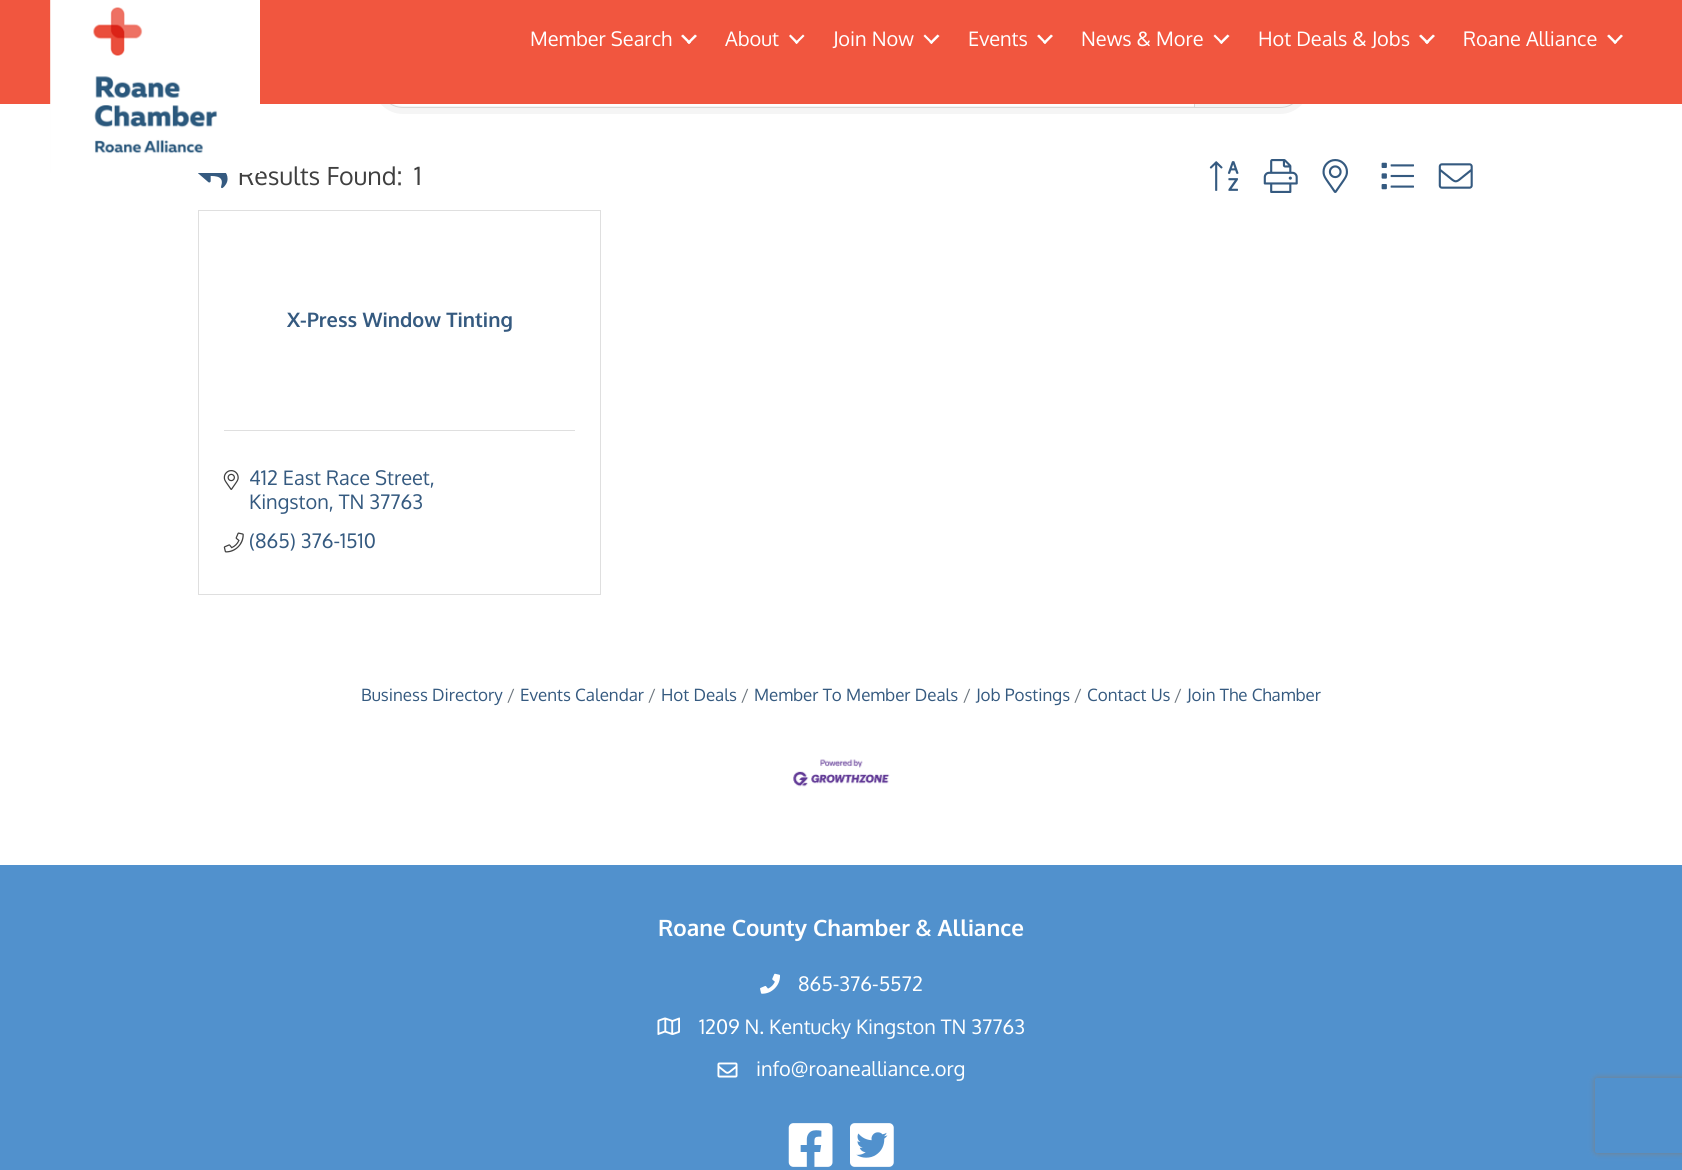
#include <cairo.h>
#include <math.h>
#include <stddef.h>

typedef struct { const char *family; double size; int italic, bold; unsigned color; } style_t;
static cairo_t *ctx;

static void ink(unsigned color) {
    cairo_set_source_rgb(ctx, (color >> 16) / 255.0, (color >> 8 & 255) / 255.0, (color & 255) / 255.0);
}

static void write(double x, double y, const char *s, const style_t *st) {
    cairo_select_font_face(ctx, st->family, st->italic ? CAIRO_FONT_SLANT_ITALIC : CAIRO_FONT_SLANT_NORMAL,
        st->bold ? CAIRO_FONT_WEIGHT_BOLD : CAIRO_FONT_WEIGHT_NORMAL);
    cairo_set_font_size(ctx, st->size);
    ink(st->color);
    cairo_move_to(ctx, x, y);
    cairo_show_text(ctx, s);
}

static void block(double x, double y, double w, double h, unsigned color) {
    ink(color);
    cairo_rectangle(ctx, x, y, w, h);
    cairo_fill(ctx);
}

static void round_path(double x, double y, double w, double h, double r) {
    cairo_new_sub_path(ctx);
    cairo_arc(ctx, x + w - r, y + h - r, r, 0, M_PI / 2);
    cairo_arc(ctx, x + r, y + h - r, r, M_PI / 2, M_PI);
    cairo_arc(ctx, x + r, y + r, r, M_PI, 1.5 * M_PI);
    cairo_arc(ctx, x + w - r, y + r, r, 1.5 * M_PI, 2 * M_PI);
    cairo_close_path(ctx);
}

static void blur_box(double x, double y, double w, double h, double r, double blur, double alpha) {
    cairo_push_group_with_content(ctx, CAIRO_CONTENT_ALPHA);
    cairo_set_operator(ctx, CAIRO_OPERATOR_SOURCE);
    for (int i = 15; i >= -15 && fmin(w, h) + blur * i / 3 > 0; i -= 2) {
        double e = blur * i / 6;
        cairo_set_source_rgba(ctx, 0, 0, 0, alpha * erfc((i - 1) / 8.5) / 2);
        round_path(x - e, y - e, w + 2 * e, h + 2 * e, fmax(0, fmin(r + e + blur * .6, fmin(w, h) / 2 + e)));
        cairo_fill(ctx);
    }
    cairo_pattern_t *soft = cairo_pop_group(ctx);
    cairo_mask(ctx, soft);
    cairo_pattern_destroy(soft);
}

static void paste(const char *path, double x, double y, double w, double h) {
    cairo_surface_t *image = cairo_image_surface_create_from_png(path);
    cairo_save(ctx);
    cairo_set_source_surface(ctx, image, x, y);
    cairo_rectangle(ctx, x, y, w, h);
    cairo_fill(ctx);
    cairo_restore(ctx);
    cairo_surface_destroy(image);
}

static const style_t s1 = {"Oxygen", 25, 0, 0, 0x3f3f3f};
static const style_t s2 = {"Oxygen", 20, 0, 0, 0xffffff};
static const style_t s3 = {"Oxygen", 20, 0, 1, 0x355a80};
static const style_t s4 = {"Oxygen", 20, 0, 0, 0x355a80};
static const style_t s5 = {"Oxygen", 17, 0, 0, 0x355a80};
static const style_t s6 = {"Oxygen", 17, 0, 0, 0x6c757d};
static const style_t s7 = {"Oxygen", 22.5, 0, 1, 0xffffff};

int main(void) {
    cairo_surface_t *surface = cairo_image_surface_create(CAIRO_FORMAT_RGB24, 1682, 1170);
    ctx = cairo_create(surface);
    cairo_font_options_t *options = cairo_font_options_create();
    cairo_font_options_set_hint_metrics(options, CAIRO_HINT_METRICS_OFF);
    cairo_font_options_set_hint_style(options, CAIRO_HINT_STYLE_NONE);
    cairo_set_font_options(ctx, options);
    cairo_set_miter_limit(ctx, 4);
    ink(0xffffff);
    cairo_paint(ctx);
    ink(0xf5f5f5);
    round_path(373, 54, 937, 60, 30);
    cairo_fill(ctx);
    ink(0xffffff);
    cairo_new_path(ctx);
    cairo_move_to(ctx, 402.5, 61);
    cairo_line_to(ctx, 1194, 61);
    cairo_line_to(ctx, 1194, 106);
    cairo_line_to(ctx, 402.5, 106);
    cairo_curve_to(ctx, 390, 106, 380, 96, 380, 83.5);
    cairo_curve_to(ctx, 380, 71, 390, 61, 402.5, 61);
    cairo_close_path(ctx);
    cairo_fill(ctx);
    cairo_new_path(ctx);
    cairo_move_to(ctx, 403, 60.5);
    cairo_line_to(ctx, 1194.5, 60.5);
    cairo_line_to(ctx, 1194.5, 107.5);
    cairo_line_to(ctx, 403, 107.5);
    cairo_curve_to(ctx, 390, 107.5, 379.5, 97, 379.5, 84);
    cairo_curve_to(ctx, 379.5, 71, 390, 60.5, 403, 60.5);
    cairo_close_path(ctx);
    cairo_set_source_rgba(ctx, 0, 0, 0, 0.12);
    cairo_set_line_width(ctx, 1);
    cairo_stroke(ctx);
    ink(0xf4f4f4);
    cairo_new_path(ctx);
    cairo_move_to(ctx, 1194.5, 60.5);
    cairo_line_to(ctx, 1280, 60.5);
    cairo_curve_to(ctx, 1293, 60.5, 1303.5, 71, 1303.5, 84);
    cairo_curve_to(ctx, 1303.5, 97, 1293, 107.5, 1280, 107.5);
    cairo_line_to(ctx, 1194.5, 107.5);
    cairo_close_path(ctx);
    cairo_fill_preserve(ctx);
    ink(0xd6d6d6);
    cairo_stroke(ctx);
    block(0, 0, 1682, 104, 0xf1563f);
    write(238, 185, "Results Found:", &s1);
    paste("pic1.png", 50, 0, 210, 173);
    write(530, 46, "Member Search", &s2);
    cairo_new_path(ctx);
    cairo_move_to(ctx, 695, 34.5);
    cairo_line_to(ctx, 697, 36);
    cairo_line_to(ctx, 689, 44);
    cairo_line_to(ctx, 687, 42.5);
    cairo_close_path(ctx);
    cairo_fill(ctx);
    cairo_new_path(ctx);
    cairo_move_to(ctx, 683, 34.5);
    cairo_line_to(ctx, 691, 42.5);
    cairo_line_to(ctx, 689, 44);
    cairo_line_to(ctx, 681, 36);
    cairo_close_path(ctx);
    cairo_fill(ctx);
    write(725, 46, "About", &s2);
    cairo_new_path(ctx);
    cairo_move_to(ctx, 803, 34.5);
    cairo_line_to(ctx, 804.5, 36);
    cairo_line_to(ctx, 796.5, 44);
    cairo_line_to(ctx, 795, 42.5);
    cairo_close_path(ctx);
    cairo_fill(ctx);
    cairo_new_path(ctx);
    cairo_move_to(ctx, 790.5, 34.5);
    cairo_line_to(ctx, 798.5, 42.5);
    cairo_line_to(ctx, 796.5, 44);
    cairo_line_to(ctx, 789, 36);
    cairo_close_path(ctx);
    cairo_fill(ctx);
    write(833, 46, "Join Now", &s2);
    cairo_new_path(ctx);
    cairo_move_to(ctx, 937.5, 34.5);
    cairo_line_to(ctx, 939.5, 36);
    cairo_line_to(ctx, 931.5, 44);
    cairo_line_to(ctx, 929.5, 42.5);
    cairo_close_path(ctx);
    cairo_fill(ctx);
    cairo_new_path(ctx);
    cairo_move_to(ctx, 925, 34.5);
    cairo_line_to(ctx, 933, 42.5);
    cairo_line_to(ctx, 931.5, 44);
    cairo_line_to(ctx, 923.5, 36);
    cairo_close_path(ctx);
    cairo_fill(ctx);
    write(968, 46, "Events", &s2);
    cairo_new_path(ctx);
    cairo_move_to(ctx, 1051, 34.5);
    cairo_line_to(ctx, 1053, 36);
    cairo_line_to(ctx, 1045, 44);
    cairo_line_to(ctx, 1043, 42.5);
    cairo_close_path(ctx);
    cairo_fill(ctx);
    cairo_new_path(ctx);
    cairo_move_to(ctx, 1039, 34.5);
    cairo_line_to(ctx, 1046.5, 42.5);
    cairo_line_to(ctx, 1045, 44);
    cairo_line_to(ctx, 1037, 36);
    cairo_close_path(ctx);
    cairo_fill(ctx);
    write(1081, 46, "News & More", &s2);
    cairo_new_path(ctx);
    cairo_move_to(ctx, 1227.5, 34.5);
    cairo_line_to(ctx, 1229.5, 36);
    cairo_line_to(ctx, 1221.5, 44);
    cairo_line_to(ctx, 1219.5, 42.5);
    cairo_close_path(ctx);
    cairo_fill(ctx);
    cairo_new_path(ctx);
    cairo_move_to(ctx, 1215, 34.5);
    cairo_line_to(ctx, 1223, 42.5);
    cairo_line_to(ctx, 1221.5, 44);
    cairo_line_to(ctx, 1213.5, 36);
    cairo_close_path(ctx);
    cairo_fill(ctx);
    write(1258, 46, "Hot Deals & Jobs", &s2);
    cairo_new_path(ctx);
    cairo_move_to(ctx, 1433, 34.5);
    cairo_line_to(ctx, 1435, 36);
    cairo_line_to(ctx, 1427, 44);
    cairo_line_to(ctx, 1425, 42.5);
    cairo_close_path(ctx);
    cairo_fill(ctx);
    cairo_new_path(ctx);
    cairo_move_to(ctx, 1421, 34.5);
    cairo_line_to(ctx, 1429, 42.5);
    cairo_line_to(ctx, 1427, 44);
    cairo_line_to(ctx, 1419, 36);
    cairo_close_path(ctx);
    cairo_fill(ctx);
    write(1463, 46, "Roane Alliance", &s2);
    cairo_new_path(ctx);
    cairo_move_to(ctx, 1621, 34.5);
    cairo_line_to(ctx, 1623, 36);
    cairo_line_to(ctx, 1615, 44);
    cairo_line_to(ctx, 1613.5, 42.5);
    cairo_close_path(ctx);
    cairo_fill(ctx);
    cairo_new_path(ctx);
    cairo_move_to(ctx, 1609, 34.5);
    cairo_line_to(ctx, 1617, 42.5);
    cairo_line_to(ctx, 1615, 44);
    cairo_line_to(ctx, 1607, 36);
    cairo_close_path(ctx);
    cairo_fill(ctx);
    paste("pic2.png", 198, 173, 30, 16);
    write(414, 185, "1", &s1);
    paste("pic3.png", 1209, 161, 30, 30);
    paste("pic4.png", 1263, 159, 35, 34);
    paste("pic5.png", 1322, 159, 26, 34);
    paste("pic6.png", 1381, 162, 33, 28);
    paste("pic7.png", 1438, 163, 35, 26);
    cairo_rectangle(ctx, 198.5, 210.5, 402, 384);
    ink(0xdfdfdf);
    cairo_stroke(ctx);
    write(287, 327, "X-Press Window Tinting", &s3);
    block(224, 430, 351, 1, 0xdfdfdf);
    paste("pic8.png", 223, 470, 16, 20);
    write(249, 485, "412 East Race Street,", &s4);
    write(249, 509, "Kingston, TN 37763", &s4);
    paste("pic9.png", 223, 532, 21, 21);
    write(249, 548, "(865) 376-1510", &s4);
    write(361, 701, "Business Directory", &s5);
    write(507, 701, "/", &s6);
    write(520, 701, "Events Calendar", &s5);
    write(648, 701, "/", &s6);
    write(661, 701, "Hot Deals", &s5);
    write(741, 701, "/", &s6);
    write(754, 701, "Member To Member Deals", &s5);
    write(963, 701, "/", &s6);
    write(976, 701, "Job Postings", &s5);
    write(1074, 701, "/", &s6);
    write(1087, 701, "Contact Us", &s5);
    write(1174, 701, "/", &s6);
    write(1187, 701, "Join The Chamber", &s5);
    paste("pic10.png", 793, 759, 97, 28);
    block(0, 865, 1682, 305, 0x5191cd);
    write(658, 936, "Roane County Chamber & Alliance", &s7);
    paste("pic11.png", 760, 973, 20, 21);
    write(798, 991, "865-376-5572", &s2);
    paste("pic12.png", 657, 1017, 23, 18);
    write(699, 1034, "1209 N. Kentucky Kingston TN 37763", &s2);
    paste("pic13.png", 717, 1062, 21, 16);
    write(756, 1076, "info@roanealliance.org", &s2);
    paste("pic14.png", 788, 1123, 45, 44);
    paste("pic15.png", 850, 1123, 44, 44);
    cairo_save(ctx);
    cairo_set_fill_rule(ctx, CAIRO_FILL_RULE_EVEN_ODD);
    cairo_new_path(ctx);
    cairo_move_to(ctx, 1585, 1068);
    cairo_line_to(ctx, 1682, 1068);
    cairo_line_to(ctx, 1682, 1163);
    cairo_line_to(ctx, 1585, 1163);
    cairo_close_path(ctx);
    cairo_move_to(ctx, 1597.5, 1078);
    cairo_line_to(ctx, 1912.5, 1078);
    cairo_curve_to(ctx, 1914, 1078, 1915, 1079, 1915, 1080.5);
    cairo_line_to(ctx, 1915, 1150.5);
    cairo_curve_to(ctx, 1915, 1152, 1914, 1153, 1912.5, 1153);
    cairo_line_to(ctx, 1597.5, 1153);
    cairo_curve_to(ctx, 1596, 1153, 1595, 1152, 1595, 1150.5);
    cairo_line_to(ctx, 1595, 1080.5);
    cairo_curve_to(ctx, 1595, 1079, 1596, 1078, 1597.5, 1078);
    cairo_close_path(ctx);
    cairo_clip(ctx);
    ink(0x808080);
    blur_box(1595, 1078, 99, 75, 2.5, 3, 1);
    cairo_restore(ctx);
    cairo_surface_write_to_png(surface, "screenshot.png");
    cairo_font_options_destroy(options);
    cairo_destroy(ctx);
    cairo_surface_destroy(surface);
    return 0;
}
